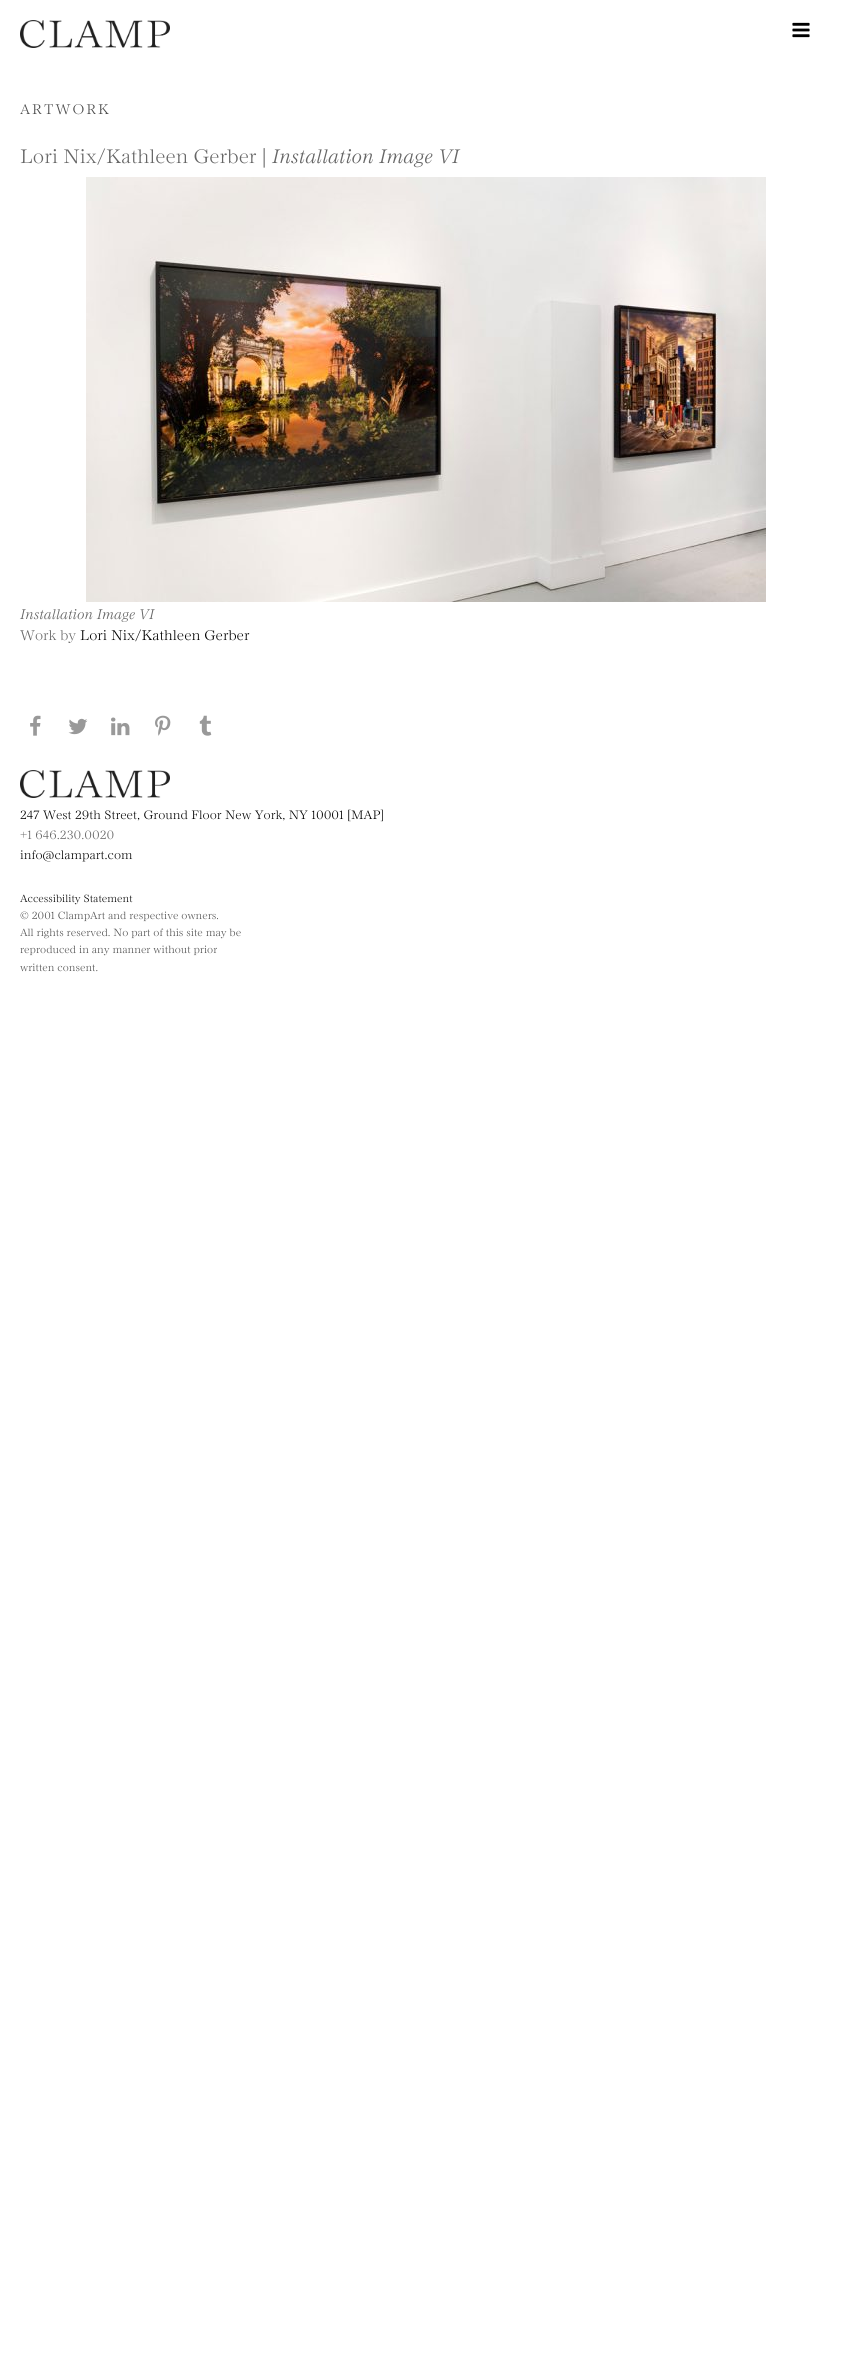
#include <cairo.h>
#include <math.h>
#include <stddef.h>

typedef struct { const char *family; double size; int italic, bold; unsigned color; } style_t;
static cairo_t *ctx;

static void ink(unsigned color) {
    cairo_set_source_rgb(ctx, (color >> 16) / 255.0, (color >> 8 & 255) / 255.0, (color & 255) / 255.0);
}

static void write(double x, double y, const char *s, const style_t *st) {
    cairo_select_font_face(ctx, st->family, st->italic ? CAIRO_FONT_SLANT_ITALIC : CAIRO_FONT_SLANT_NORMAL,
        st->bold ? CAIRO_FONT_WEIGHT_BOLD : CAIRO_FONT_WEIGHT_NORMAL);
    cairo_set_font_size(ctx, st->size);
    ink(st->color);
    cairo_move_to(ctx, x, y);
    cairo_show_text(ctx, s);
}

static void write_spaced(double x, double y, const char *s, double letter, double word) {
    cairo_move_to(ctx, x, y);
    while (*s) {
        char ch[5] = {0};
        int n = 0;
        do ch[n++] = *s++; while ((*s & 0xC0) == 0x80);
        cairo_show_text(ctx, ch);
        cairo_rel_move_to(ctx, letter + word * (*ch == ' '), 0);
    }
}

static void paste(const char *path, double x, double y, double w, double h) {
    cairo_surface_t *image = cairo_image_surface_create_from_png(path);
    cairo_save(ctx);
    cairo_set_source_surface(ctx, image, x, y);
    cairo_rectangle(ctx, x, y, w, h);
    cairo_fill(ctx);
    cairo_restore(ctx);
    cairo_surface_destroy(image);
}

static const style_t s1 = {"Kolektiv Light", 21.5, 0, 0, 0x666666};
static const style_t s2 = {"Liberation Serif", 21.5, 0, 0, 0x666666};
static const style_t s3 = {"Kolektiv Light", 21.5, 1, 0, 0x666666};
static const style_t s4 = {"Kolektiv Light", 15.4, 1, 0, 0x666666};
static const style_t s5 = {"Kolektiv Light", 15.4, 0, 0, 0x666666};
static const style_t s6 = {"Kolektiv Light", 15.4, 0, 0, 0x000000};
static const style_t s7 = {"Kolektiv Light", 13.45, 0, 0, 0x000000};
static const style_t s8 = {"Kolektiv Light", 13.45, 0, 0, 0x666666};
static const style_t s9 = {"Kolektiv Light", 11.5, 0, 0, 0x000000};
static const style_t s10 = {"Kolektiv Light", 11.5, 0, 0, 0x4c4c4c};

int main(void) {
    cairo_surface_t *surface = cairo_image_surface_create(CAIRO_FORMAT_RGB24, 851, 2358);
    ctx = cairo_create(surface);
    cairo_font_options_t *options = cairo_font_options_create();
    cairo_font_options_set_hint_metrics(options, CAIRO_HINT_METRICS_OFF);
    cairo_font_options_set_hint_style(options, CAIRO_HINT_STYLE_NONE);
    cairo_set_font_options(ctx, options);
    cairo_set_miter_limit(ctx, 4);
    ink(0xffffff);
    cairo_paint(ctx);
    paste("pic1.png", 20, 20, 150, 28);
    paste("pic2.png", 792, 22, 18, 16);
    cairo_select_font_face(ctx, "Kolektiv Light", CAIRO_FONT_SLANT_NORMAL, CAIRO_FONT_WEIGHT_NORMAL);
    cairo_set_font_size(ctx, 15.4);
    ink(0x4c4c4c);
    write_spaced(20, 114, "ARTWORK", 2, 0);
    write(20, 163, "Lori Nix/Kathleen Gerber", &s1);
    write(262, 163, "|", &s2);
    write(272, 163, "Installation Image VI", &s3);
    paste("pic3.png", 86, 177, 680, 425);
    write(20, 619, "Installation Image VI", &s4);
    write(20, 640, "Work by", &s5);
    write(80, 640, "Lori Nix/Kathleen Gerber", &s6);
    paste("pic4.png", 30, 715, 11, 21);
    paste("pic5.png", 68, 718, 20, 17);
    paste("pic6.png", 111, 717, 19, 19);
    paste("pic7.png", 155, 715, 16, 21);
    paste("pic8.png", 199, 715, 13, 21);
    paste("pic1.png", 20, 770, 150, 28);
    write(20, 819, "247 West 29th Street, Ground Floor New York, NY 10001 [MAP]", &s7);
    write(20, 839, "+1 646.230.0020", &s8);
    write(20, 859, "info@clampart.com", &s7);
    write(20, 902, "Accessibility Statement", &s9);
    write(20, 919, "© 2001 ClampArt and respective owners.", &s10);
    write(20, 936, "All rights reserved. No part of this site may be", &s10);
    write(20, 953, "reproduced in any manner without prior", &s10);
    write(20, 971, "written consent.", &s10);
    cairo_surface_write_to_png(surface, "screenshot.png");
    cairo_font_options_destroy(options);
    cairo_destroy(ctx);
    cairo_surface_destroy(surface);
    return 0;
}
